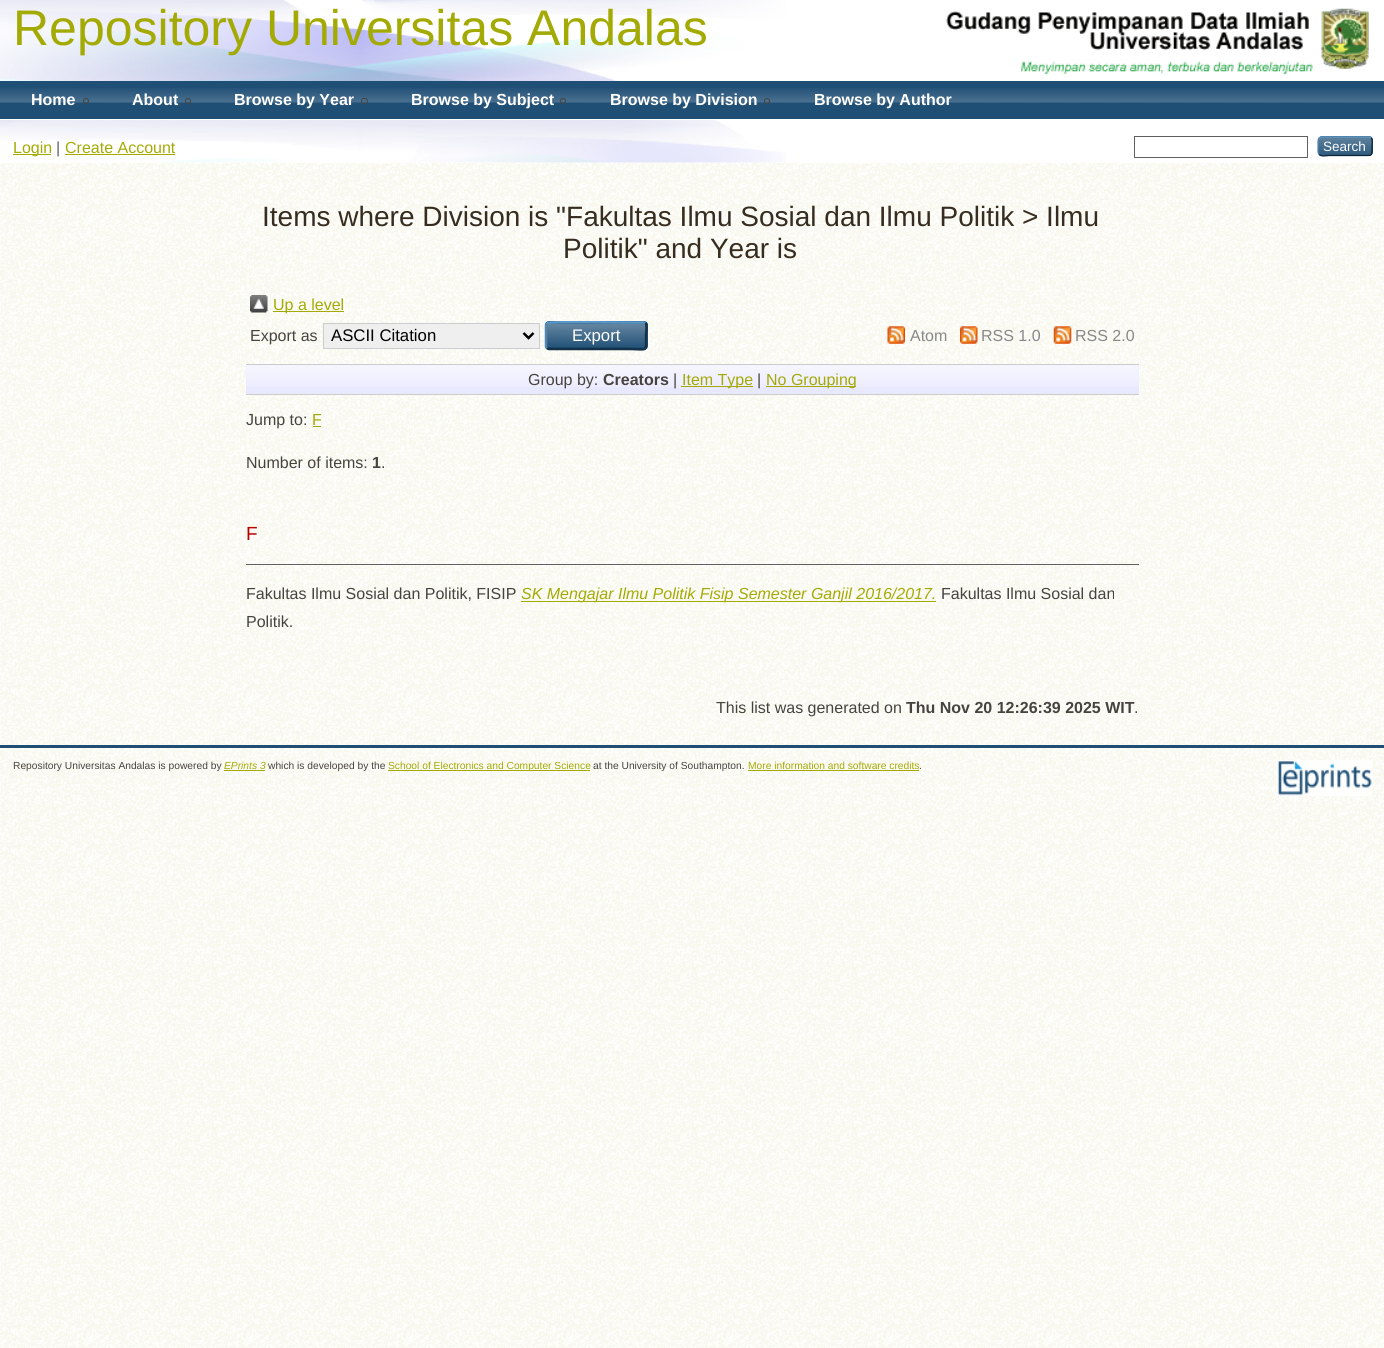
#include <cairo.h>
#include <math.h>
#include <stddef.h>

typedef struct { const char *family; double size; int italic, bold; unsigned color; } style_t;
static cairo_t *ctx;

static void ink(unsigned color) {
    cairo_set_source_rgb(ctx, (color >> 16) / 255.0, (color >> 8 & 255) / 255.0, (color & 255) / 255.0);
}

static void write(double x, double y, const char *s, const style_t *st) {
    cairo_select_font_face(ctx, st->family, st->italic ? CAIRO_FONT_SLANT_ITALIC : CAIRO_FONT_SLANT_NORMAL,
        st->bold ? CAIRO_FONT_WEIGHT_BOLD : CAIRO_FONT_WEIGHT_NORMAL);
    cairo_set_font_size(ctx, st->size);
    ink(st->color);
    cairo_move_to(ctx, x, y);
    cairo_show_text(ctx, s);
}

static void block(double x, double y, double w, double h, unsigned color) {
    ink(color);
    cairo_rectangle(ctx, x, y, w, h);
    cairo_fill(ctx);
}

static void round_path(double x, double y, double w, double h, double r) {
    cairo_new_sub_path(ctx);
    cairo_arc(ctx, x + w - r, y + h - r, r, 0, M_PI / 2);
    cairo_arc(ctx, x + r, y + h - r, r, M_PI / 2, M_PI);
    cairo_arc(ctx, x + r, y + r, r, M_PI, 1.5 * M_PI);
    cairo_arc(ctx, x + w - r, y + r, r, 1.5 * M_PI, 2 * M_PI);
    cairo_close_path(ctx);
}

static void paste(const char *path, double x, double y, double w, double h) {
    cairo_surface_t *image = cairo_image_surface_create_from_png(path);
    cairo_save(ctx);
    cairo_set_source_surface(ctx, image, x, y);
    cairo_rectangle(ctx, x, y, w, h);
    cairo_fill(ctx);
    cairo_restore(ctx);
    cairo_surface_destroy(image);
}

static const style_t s1 = {"Liberation Sans", 50, 0, 0, 0xa4aa04};
static const style_t s2 = {"Liberation Sans", 16, 0, 1, 0xffffff};
static const style_t s3 = {"Liberation Sans", 16, 0, 0, 0xa4aa04};
static const style_t s4 = {"Liberation Sans", 16, 0, 0, 0x606060};
static const style_t s5 = {"Liberation Sans", 13.5, 0, 0, 0xffffff};
static const style_t s6 = {"Liberation Sans", 28, 0, 0, 0x362c20};
static const style_t s7 = {"Liberation Sans", 16, 0, 0, 0x47433f};
static const style_t s8 = {"Liberation Sans", 16.75, 0, 0, 0x000000};
static const style_t s9 = {"Liberation Sans", 16.75, 0, 0, 0xffffff};
static const style_t s10 = {"Liberation Sans", 16, 0, 0, 0x888888};
static const style_t s11 = {"Liberation Sans", 16, 0, 1, 0x47433f};
static const style_t s12 = {"Liberation Sans", 19, 0, 0, 0xb60000};
static const style_t s13 = {"Liberation Sans", 16, 1, 0, 0xa4aa04};
static const style_t s14 = {"Liberation Sans", 10.25, 0, 0, 0x47433f};
static const style_t s15 = {"Liberation Sans", 10.25, 1, 0, 0xa4aa04};
static const style_t s16 = {"Liberation Sans", 10.25, 0, 0, 0xa4aa04};

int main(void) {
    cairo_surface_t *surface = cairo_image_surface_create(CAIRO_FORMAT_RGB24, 1384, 1348);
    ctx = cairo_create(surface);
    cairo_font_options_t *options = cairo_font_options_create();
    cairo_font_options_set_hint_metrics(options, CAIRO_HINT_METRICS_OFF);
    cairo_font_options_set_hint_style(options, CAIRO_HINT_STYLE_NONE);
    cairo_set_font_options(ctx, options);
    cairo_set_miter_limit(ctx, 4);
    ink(0xffffff);
    cairo_paint(ctx);
    paste("pic1.png", 0, 163, 1384, 1185);
    paste("pic2.png", 0, 0, 786, 163);
    write(13, 45, "Repository Universitas Andalas", &s1);
    paste("pic3.png", 946, 8, 423, 66);
    block(0, 81, 1384, 38, 0x204f76);
    paste("pic4.png", 0, 88, 1384, 15);
    block(0, 119, 715, 1, 0xffffff);
    write(31, 105, "Home", &s2);
    cairo_new_path(ctx);
    cairo_arc(ctx, 86, 101, 2.5, 0, 2 * M_PI);
    ink(0x47433f);
    cairo_set_line_width(ctx, 1);
    cairo_stroke(ctx);
    write(132, 105, "About", &s2);
    cairo_new_path(ctx);
    cairo_arc(ctx, 188, 101, 2.5, 0, 2 * M_PI);
    ink(0x47433f);
    cairo_stroke(ctx);
    write(234, 105, "Browse by Year", &s2);
    round_path(361.5, 98.5, 6, 5, 2.5);
    ink(0x47433f);
    cairo_stroke(ctx);
    write(411, 105, "Browse by Subject", &s2);
    cairo_new_path(ctx);
    cairo_arc(ctx, 563, 101, 2.5, 0, 2 * M_PI);
    ink(0x47433f);
    cairo_stroke(ctx);
    write(610, 105, "Browse by Division", &s2);
    cairo_new_path(ctx);
    cairo_arc(ctx, 767, 101, 2.5, 0, 2 * M_PI);
    ink(0x47433f);
    cairo_stroke(ctx);
    write(814, 105, "Browse by Author", &s2);
    block(13, 154, 38, 1, 0xa4aa04);
    write(13, 153, "Login", &s3);
    write(56, 153, "|", &s4);
    write(65, 153, "Create Account", &s3);
    block(65, 154, 110, 1, 0xa4aa04);
    cairo_rectangle(ctx, 1134.5, 136.5, 173, 21);
    ink(0x606060);
    cairo_stroke(ctx);
    ink(0x1f4f76);
    round_path(1318, 136, 55, 20, 4);
    cairo_fill(ctx);
    paste("pic5.png", 1318, 136, 55, 20);
    cairo_new_path(ctx);
    cairo_move_to(ctx, 1319, 138);
    cairo_line_to(ctx, 1321, 137);
    cairo_line_to(ctx, 1369, 137);
    cairo_line_to(ctx, 1371, 138);
    ink(0x5b97c7);
    cairo_set_line_width(ctx, 1.2);
    cairo_stroke(ctx);
    cairo_new_path(ctx);
    cairo_move_to(ctx, 1371, 138);
    cairo_curve_to(ctx, 1373, 140, 1372, 144, 1372, 146);
    cairo_curve_to(ctx, 1372, 157, 1372.5, 155.5, 1361, 155.5);
    cairo_line_to(ctx, 1329, 155.5);
    cairo_curve_to(ctx, 1328.5, 155.5, 1321, 157, 1319, 154.5);
    ink(0x0d2131);
    cairo_stroke(ctx);
    cairo_new_path(ctx);
    cairo_move_to(ctx, 1319, 154.5);
    cairo_curve_to(ctx, 1317.5, 153, 1318, 148.5, 1318, 146);
    cairo_curve_to(ctx, 1318, 144, 1317.5, 139.5, 1319, 138);
    ink(0x5287b3);
    cairo_stroke(ctx);
    write(1323, 151, "Search", &s5);
    write(262, 226, "Items where Division is \"Fakultas Ilmu Sosial dan Ilmu Politik > Ilmu", &s6);
    write(563, 258, "Politik\" and Year is", &s6);
    paste("pic6.png", 250, 295, 18, 18);
    block(273, 311, 71, 1, 0xa4aa04);
    write(273, 310, "Up a level", &s3);
    write(250, 341, "Export as", &s7);
    ink(0xefefef);
    cairo_rectangle(ctx, 323.5, 323.5, 216, 25);
    cairo_fill_preserve(ctx);
    ink(0xcccccc);
    cairo_set_line_width(ctx, 1);
    cairo_stroke(ctx);
    cairo_new_path(ctx);
    cairo_move_to(ctx, 523.5, 333);
    cairo_line_to(ctx, 528.5, 338);
    cairo_line_to(ctx, 533.5, 333);
    ink(0x000000);
    cairo_set_line_width(ctx, 2.5);
    cairo_stroke(ctx);
    write(331, 341, "ASCII Citation", &s8);
    ink(0x1f4f76);
    round_path(545, 321, 103, 29, 4);
    cairo_fill(ctx);
    paste("pic7.png", 545, 323, 103, 24);
    cairo_new_path(ctx);
    cairo_move_to(ctx, 547, 323);
    cairo_line_to(ctx, 547.5, 323);
    cairo_curve_to(ctx, 549.5, 321.5, 619.5, 322.5, 628, 322.5);
    cairo_line_to(ctx, 644, 322.5);
    cairo_line_to(ctx, 645.5, 323);
    ink(0x5b97c7);
    cairo_stroke(ctx);
    cairo_new_path(ctx);
    cairo_move_to(ctx, 645.5, 323);
    cairo_curve_to(ctx, 647.5, 325, 646, 333, 646, 335.5);
    cairo_curve_to(ctx, 646, 353, 648.5, 349, 628, 349);
    cairo_line_to(ctx, 549, 349);
    cairo_line_to(ctx, 547, 348);
    ink(0x13324a);
    cairo_stroke(ctx);
    cairo_new_path(ctx);
    cairo_move_to(ctx, 547, 348);
    cairo_curve_to(ctx, 546.5, 347.5, 546, 347, 546, 346);
    cairo_line_to(ctx, 546, 325);
    cairo_curve_to(ctx, 546, 324.5, 546.5, 323.5, 547, 323);
    ink(0x5287b3);
    cairo_stroke(ctx);
    write(572, 341, "Export", &s9);
    paste("pic8.png", 887, 326, 18, 18);
    write(910, 341, "Atom", &s10);
    paste("pic9.png", 960, 326, 18, 18);
    write(981, 341, "RSS 1.0", &s10);
    paste("pic10.png", 1053, 326, 19, 18);
    write(1075, 341, "RSS 2.0", &s10);
    block(246, 365, 893, 29, 0xe8e8ff);
    paste("pic11.png", 246, 365, 893, 22);
    block(246, 364, 893, 1, 0xcccccc);
    block(246, 394, 893, 1, 0xcccccc);
    write(528, 385, "Group by:", &s7);
    write(603, 385, "Creators", &s11);
    write(673, 385, "|", &s7);
    block(681, 386, 72, 1, 0xa4aa04);
    write(682, 385, "Item Type", &s3);
    write(757, 385, "|", &s7);
    block(766, 386, 90, 1, 0xa4aa04);
    write(766, 385, "No Grouping", &s3);
    write(246, 425, "Jump to:", &s7);
    write(312, 425, "F", &s3);
    block(313, 426, 8, 1, 0xa4aa04);
    write(246, 468, "Number of items:", &s7);
    write(372, 468, "1", &s11);
    write(381, 468, ".", &s7);
    block(246, 564, 893, 1, 0x606060);
    write(246, 540, "F", &s12);
    write(246, 599, "Fakultas Ilmu Sosial dan Politik, FISIP", &s7);
    block(521, 601, 415, 1, 0xa4aa04);
    write(521, 599, "SK Mengajar Ilmu Politik Fisip Semester Ganjil 2016/2017.", &s13);
    write(941, 599, "Fakultas Ilmu Sosial dan", &s7);
    write(246, 627, "Politik.", &s7);
    write(716, 713, "This list was generated on", &s7);
    write(906, 713, "Thu Nov 20 12:26:39 2025 WIT", &s11);
    write(1134, 713, ".", &s7);
    block(0, 745, 1384, 3, 0x204f76);
    write(13, 769, "Repository Universitas Andalas is powered by", &s14);
    write(224, 769, "EPrints 3", &s15);
    block(224, 770, 41, 1, 0xa4aa04);
    write(268, 769, "which is developed by the", &s14);
    block(388, 770, 202, 1, 0xa4aa04);
    write(388, 769, "School of Electronics and Computer Science", &s16);
    write(593, 769, "at the University of Southampton.", &s14);
    write(748, 769, "More information and software credits", &s16);
    block(748, 770, 171, 1, 0xa4aa04);
    write(919, 769, ".", &s14);
    paste("pic12.png", 1276, 760, 97, 37);
    cairo_surface_write_to_png(surface, "screenshot.png");
    cairo_font_options_destroy(options);
    cairo_destroy(ctx);
    cairo_surface_destroy(surface);
    return 0;
}
